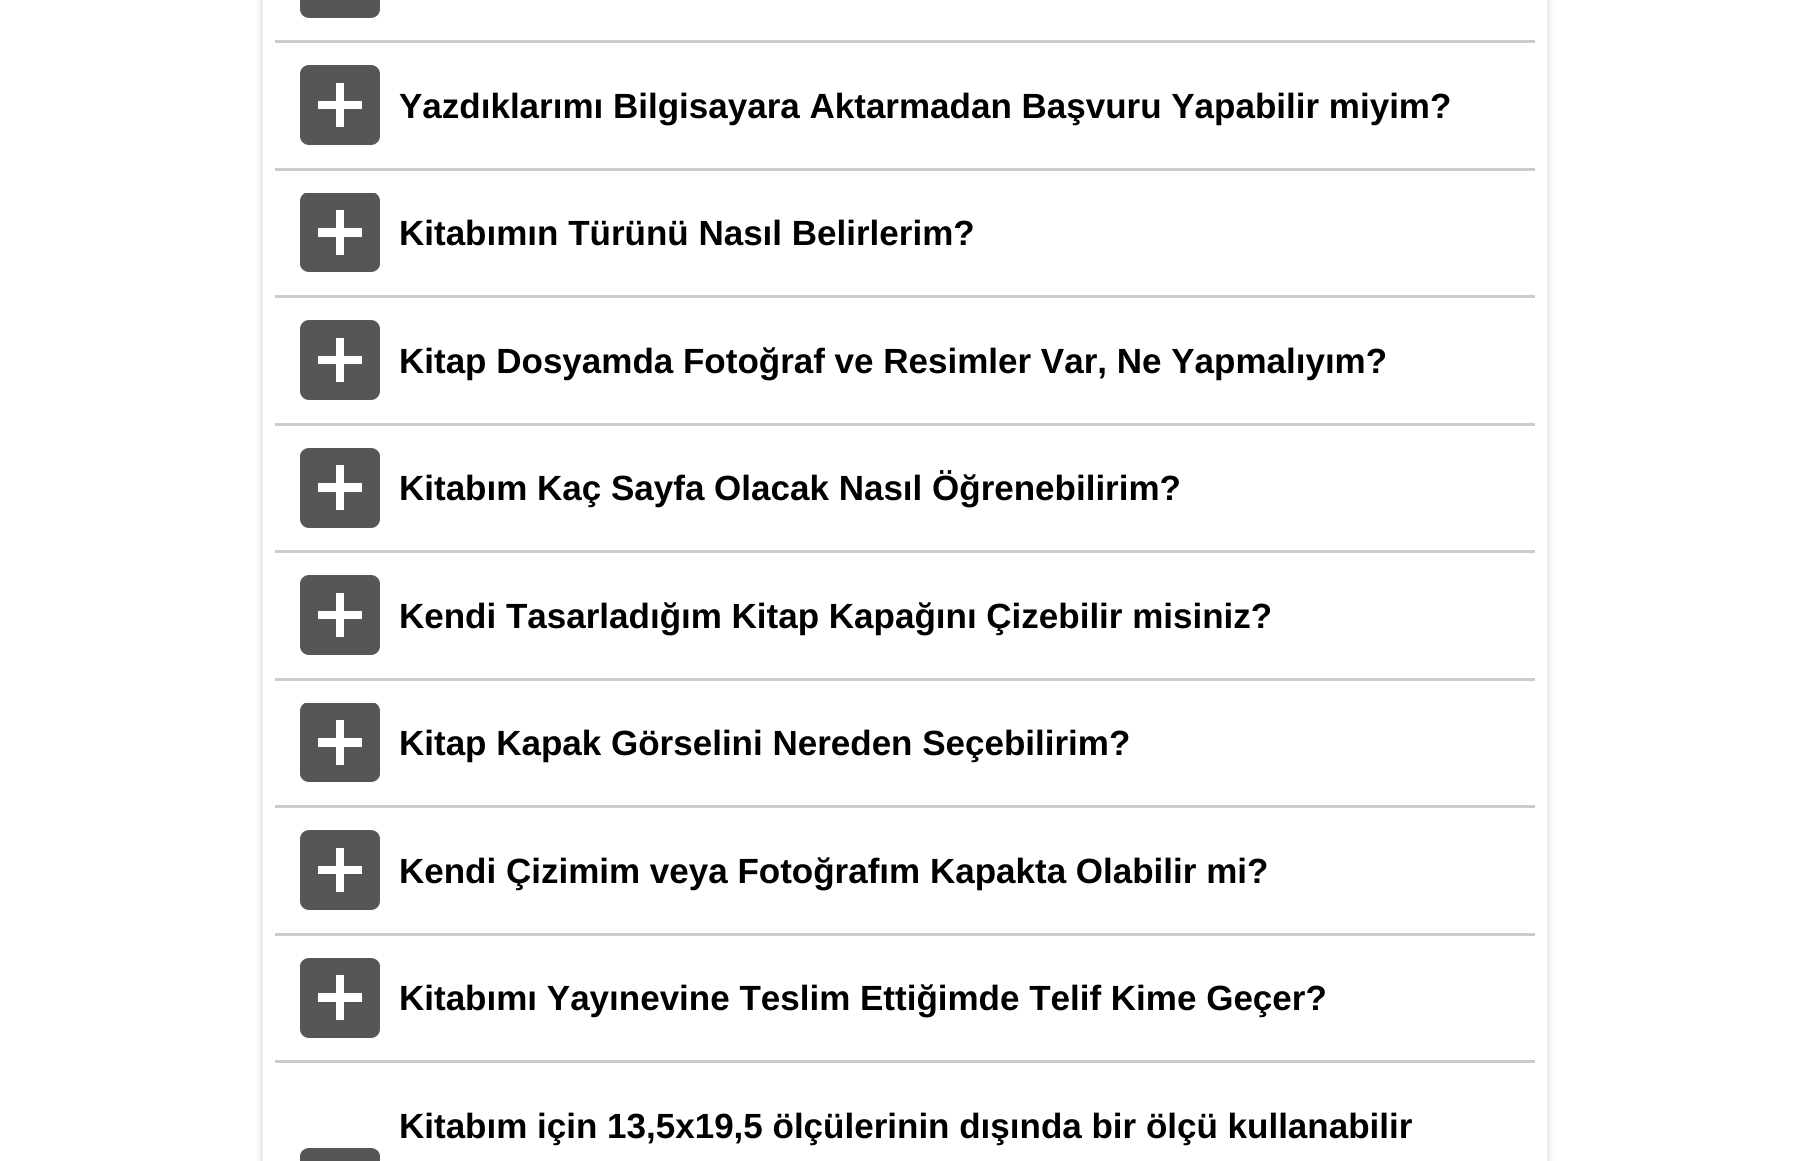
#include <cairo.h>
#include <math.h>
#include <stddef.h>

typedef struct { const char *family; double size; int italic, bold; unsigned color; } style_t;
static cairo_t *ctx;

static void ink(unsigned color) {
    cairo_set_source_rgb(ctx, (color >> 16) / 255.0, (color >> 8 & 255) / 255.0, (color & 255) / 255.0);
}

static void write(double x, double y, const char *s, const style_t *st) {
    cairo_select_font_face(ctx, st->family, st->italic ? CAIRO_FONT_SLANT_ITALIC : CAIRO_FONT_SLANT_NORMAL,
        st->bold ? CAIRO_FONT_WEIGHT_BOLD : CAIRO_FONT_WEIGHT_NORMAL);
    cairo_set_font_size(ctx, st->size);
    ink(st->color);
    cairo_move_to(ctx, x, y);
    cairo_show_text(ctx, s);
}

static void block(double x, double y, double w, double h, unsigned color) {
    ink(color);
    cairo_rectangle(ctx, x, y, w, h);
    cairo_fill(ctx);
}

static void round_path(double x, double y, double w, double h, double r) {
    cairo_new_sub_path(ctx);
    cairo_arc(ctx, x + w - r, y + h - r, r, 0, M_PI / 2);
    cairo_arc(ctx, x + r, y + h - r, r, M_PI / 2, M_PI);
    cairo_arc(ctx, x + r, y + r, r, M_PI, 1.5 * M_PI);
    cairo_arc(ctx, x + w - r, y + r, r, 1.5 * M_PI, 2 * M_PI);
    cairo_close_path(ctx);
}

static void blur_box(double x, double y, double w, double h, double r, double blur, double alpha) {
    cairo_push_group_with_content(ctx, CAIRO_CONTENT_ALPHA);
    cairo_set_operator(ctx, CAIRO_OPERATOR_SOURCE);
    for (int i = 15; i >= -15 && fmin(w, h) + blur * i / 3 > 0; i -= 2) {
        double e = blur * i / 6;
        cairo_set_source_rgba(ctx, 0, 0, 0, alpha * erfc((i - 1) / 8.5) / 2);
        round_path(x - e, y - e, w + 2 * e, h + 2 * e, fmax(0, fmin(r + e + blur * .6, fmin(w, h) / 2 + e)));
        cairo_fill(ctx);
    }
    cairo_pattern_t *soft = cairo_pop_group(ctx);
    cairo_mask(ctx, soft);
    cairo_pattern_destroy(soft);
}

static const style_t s1 = {"Liberation Sans", 35, 0, 1, 0x000000};

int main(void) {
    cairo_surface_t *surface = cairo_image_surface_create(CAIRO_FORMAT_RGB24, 1806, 1161);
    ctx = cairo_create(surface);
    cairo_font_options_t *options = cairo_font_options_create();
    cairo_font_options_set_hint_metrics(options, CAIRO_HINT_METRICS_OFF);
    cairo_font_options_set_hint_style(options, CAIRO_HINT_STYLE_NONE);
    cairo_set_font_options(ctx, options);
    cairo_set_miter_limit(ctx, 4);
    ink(0xffffff);
    cairo_paint(ctx);
    cairo_save(ctx);
    cairo_set_fill_rule(ctx, CAIRO_FILL_RULE_EVEN_ODD);
    cairo_new_path(ctx);
    cairo_move_to(ctx, 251, 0);
    cairo_line_to(ctx, 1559, 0);
    cairo_line_to(ctx, 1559, 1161);
    cairo_line_to(ctx, 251, 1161);
    cairo_close_path(ctx);
    cairo_move_to(ctx, 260, -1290);
    cairo_line_to(ctx, 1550, -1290);
    cairo_line_to(ctx, 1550, 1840);
    cairo_line_to(ctx, 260, 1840);
    cairo_close_path(ctx);
    cairo_clip(ctx);
    ink(0x000000);
    blur_box(260, -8, 1290, 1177, 0, 2.5, 0.1);
    cairo_restore(ctx);
    cairo_rectangle(ctx, 261.5, -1.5, 1287, 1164);
    ink(0xededed);
    cairo_set_line_width(ctx, 3);
    cairo_stroke(ctx);
    ink(0x575657);
    cairo_new_path(ctx);
    cairo_move_to(ctx, 371, -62);
    cairo_line_to(ctx, 309, -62);
    cairo_curve_to(ctx, 304, -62, 300, -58, 300, -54);
    cairo_line_to(ctx, 300, 9);
    cairo_curve_to(ctx, 300, 14, 304, 18, 309, 18);
    cairo_line_to(ctx, 371, 18);
    cairo_curve_to(ctx, 376, 18, 380, 14, 380, 9);
    cairo_line_to(ctx, 380, -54);
    cairo_curve_to(ctx, 380, -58, 376, -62, 371, -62);
    cairo_close_path(ctx);
    cairo_move_to(ctx, 362, -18);
    cairo_line_to(ctx, 344, -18);
    cairo_line_to(ctx, 344, 0);
    cairo_line_to(ctx, 336, 0);
    cairo_line_to(ctx, 336, -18);
    cairo_line_to(ctx, 318, -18);
    cairo_line_to(ctx, 318, -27);
    cairo_line_to(ctx, 336, -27);
    cairo_line_to(ctx, 336, -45);
    cairo_line_to(ctx, 344, -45);
    cairo_line_to(ctx, 344, -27);
    cairo_line_to(ctx, 362, -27);
    cairo_close_path(ctx);
    cairo_fill(ctx);
    block(275, 40, 1260, 3, 0xcccccc);
    ink(0x575657);
    cairo_new_path(ctx);
    cairo_move_to(ctx, 371, 65);
    cairo_line_to(ctx, 309, 65);
    cairo_curve_to(ctx, 304, 65, 300, 69, 300, 74);
    cairo_line_to(ctx, 300, 136);
    cairo_curve_to(ctx, 300, 141, 304, 145, 309, 145);
    cairo_line_to(ctx, 371, 145);
    cairo_curve_to(ctx, 376, 145, 380, 141, 380, 136);
    cairo_line_to(ctx, 380, 74);
    cairo_curve_to(ctx, 380, 69, 376, 65, 371, 65);
    cairo_close_path(ctx);
    cairo_move_to(ctx, 362, 109);
    cairo_line_to(ctx, 344, 109);
    cairo_line_to(ctx, 344, 127);
    cairo_line_to(ctx, 336, 127);
    cairo_line_to(ctx, 336, 109);
    cairo_line_to(ctx, 318, 109);
    cairo_line_to(ctx, 318, 101);
    cairo_line_to(ctx, 336, 101);
    cairo_line_to(ctx, 336, 83);
    cairo_line_to(ctx, 344, 83);
    cairo_line_to(ctx, 344, 101);
    cairo_line_to(ctx, 362, 101);
    cairo_close_path(ctx);
    cairo_fill(ctx);
    block(275, 168, 1260, 3, 0xcccccc);
    write(399, 118, "Yazdıklarımı Bilgisayara Aktarmadan Başvuru Yapabilir miyim?", &s1);
    cairo_save(ctx);
    cairo_rectangle(ctx, 300, 193, 80, 80);
    cairo_clip(ctx);
    ink(0x575657);
    cairo_new_path(ctx);
    cairo_move_to(ctx, 371, 192);
    cairo_line_to(ctx, 309, 192);
    cairo_curve_to(ctx, 304, 192, 300, 196, 300, 201);
    cairo_line_to(ctx, 300, 264);
    cairo_curve_to(ctx, 300, 268, 304, 272, 309, 272);
    cairo_line_to(ctx, 371, 272);
    cairo_curve_to(ctx, 376, 272, 380, 268, 380, 264);
    cairo_line_to(ctx, 380, 201);
    cairo_curve_to(ctx, 380, 196, 376, 192, 371, 192);
    cairo_close_path(ctx);
    cairo_move_to(ctx, 362, 237);
    cairo_line_to(ctx, 344, 237);
    cairo_line_to(ctx, 344, 255);
    cairo_line_to(ctx, 336, 255);
    cairo_line_to(ctx, 336, 237);
    cairo_line_to(ctx, 318, 237);
    cairo_line_to(ctx, 318, 228);
    cairo_line_to(ctx, 336, 228);
    cairo_line_to(ctx, 336, 210);
    cairo_line_to(ctx, 344, 210);
    cairo_line_to(ctx, 344, 228);
    cairo_line_to(ctx, 362, 228);
    cairo_close_path(ctx);
    cairo_fill(ctx);
    cairo_restore(ctx);
    block(275, 295, 1260, 3, 0xcccccc);
    write(399, 245, "Kitabımın Türünü Nasıl Belirlerim?", &s1);
    ink(0x575657);
    cairo_new_path(ctx);
    cairo_move_to(ctx, 371, 320);
    cairo_line_to(ctx, 309, 320);
    cairo_curve_to(ctx, 304, 320, 300, 324, 300, 329);
    cairo_line_to(ctx, 300, 391);
    cairo_curve_to(ctx, 300, 396, 304, 400, 309, 400);
    cairo_line_to(ctx, 371, 400);
    cairo_curve_to(ctx, 376, 400, 380, 396, 380, 391);
    cairo_line_to(ctx, 380, 329);
    cairo_curve_to(ctx, 380, 324, 376, 320, 371, 320);
    cairo_close_path(ctx);
    cairo_move_to(ctx, 362, 364);
    cairo_line_to(ctx, 344, 364);
    cairo_line_to(ctx, 344, 382);
    cairo_line_to(ctx, 336, 382);
    cairo_line_to(ctx, 336, 364);
    cairo_line_to(ctx, 318, 364);
    cairo_line_to(ctx, 318, 356);
    cairo_line_to(ctx, 336, 356);
    cairo_line_to(ctx, 336, 338);
    cairo_line_to(ctx, 344, 338);
    cairo_line_to(ctx, 344, 356);
    cairo_line_to(ctx, 362, 356);
    cairo_close_path(ctx);
    cairo_fill(ctx);
    block(275, 423, 1260, 3, 0xcccccc);
    write(399, 373, "Kitap Dosyamda Fotoğraf ve Resimler Var, Ne Yapmalıyım?", &s1);
    ink(0x575657);
    cairo_new_path(ctx);
    cairo_move_to(ctx, 371, 448);
    cairo_line_to(ctx, 309, 448);
    cairo_curve_to(ctx, 304, 448, 300, 452, 300, 456);
    cairo_line_to(ctx, 300, 519);
    cairo_curve_to(ctx, 300, 524, 304, 528, 309, 528);
    cairo_line_to(ctx, 371, 528);
    cairo_curve_to(ctx, 376, 528, 380, 524, 380, 519);
    cairo_line_to(ctx, 380, 456);
    cairo_curve_to(ctx, 380, 452, 376, 448, 371, 448);
    cairo_close_path(ctx);
    cairo_move_to(ctx, 362, 492);
    cairo_line_to(ctx, 344, 492);
    cairo_line_to(ctx, 344, 510);
    cairo_line_to(ctx, 336, 510);
    cairo_line_to(ctx, 336, 492);
    cairo_line_to(ctx, 318, 492);
    cairo_line_to(ctx, 318, 483);
    cairo_line_to(ctx, 336, 483);
    cairo_line_to(ctx, 336, 465);
    cairo_line_to(ctx, 344, 465);
    cairo_line_to(ctx, 344, 483);
    cairo_line_to(ctx, 362, 483);
    cairo_close_path(ctx);
    cairo_fill(ctx);
    block(275, 550, 1260, 3, 0xcccccc);
    write(399, 500, "Kitabım Kaç Sayfa Olacak Nasıl Öğrenebilirim?", &s1);
    ink(0x575657);
    cairo_new_path(ctx);
    cairo_move_to(ctx, 371, 575);
    cairo_line_to(ctx, 309, 575);
    cairo_curve_to(ctx, 304, 575, 300, 579, 300, 584);
    cairo_line_to(ctx, 300, 646);
    cairo_curve_to(ctx, 300, 651, 304, 655, 309, 655);
    cairo_line_to(ctx, 371, 655);
    cairo_curve_to(ctx, 376, 655, 380, 651, 380, 646);
    cairo_line_to(ctx, 380, 584);
    cairo_curve_to(ctx, 380, 579, 376, 575, 371, 575);
    cairo_close_path(ctx);
    cairo_move_to(ctx, 362, 619);
    cairo_line_to(ctx, 344, 619);
    cairo_line_to(ctx, 344, 637);
    cairo_line_to(ctx, 336, 637);
    cairo_line_to(ctx, 336, 619);
    cairo_line_to(ctx, 318, 619);
    cairo_line_to(ctx, 318, 611);
    cairo_line_to(ctx, 336, 611);
    cairo_line_to(ctx, 336, 593);
    cairo_line_to(ctx, 344, 593);
    cairo_line_to(ctx, 344, 611);
    cairo_line_to(ctx, 362, 611);
    cairo_close_path(ctx);
    cairo_fill(ctx);
    block(275, 678, 1260, 3, 0xcccccc);
    write(399, 628, "Kendi Tasarladığım Kitap Kapağını Çizebilir misiniz?", &s1);
    cairo_save(ctx);
    cairo_rectangle(ctx, 300, 703, 80, 80);
    cairo_clip(ctx);
    ink(0x575657);
    cairo_new_path(ctx);
    cairo_move_to(ctx, 371, 702);
    cairo_line_to(ctx, 309, 702);
    cairo_curve_to(ctx, 304, 702, 300, 706, 300, 711);
    cairo_line_to(ctx, 300, 774);
    cairo_curve_to(ctx, 300, 778, 304, 782, 309, 782);
    cairo_line_to(ctx, 371, 782);
    cairo_curve_to(ctx, 376, 782, 380, 778, 380, 774);
    cairo_line_to(ctx, 380, 711);
    cairo_curve_to(ctx, 380, 706, 376, 702, 371, 702);
    cairo_close_path(ctx);
    cairo_move_to(ctx, 362, 747);
    cairo_line_to(ctx, 344, 747);
    cairo_line_to(ctx, 344, 765);
    cairo_line_to(ctx, 336, 765);
    cairo_line_to(ctx, 336, 747);
    cairo_line_to(ctx, 318, 747);
    cairo_line_to(ctx, 318, 738);
    cairo_line_to(ctx, 336, 738);
    cairo_line_to(ctx, 336, 720);
    cairo_line_to(ctx, 344, 720);
    cairo_line_to(ctx, 344, 738);
    cairo_line_to(ctx, 362, 738);
    cairo_close_path(ctx);
    cairo_fill(ctx);
    cairo_restore(ctx);
    block(275, 805, 1260, 3, 0xcccccc);
    write(399, 755, "Kitap Kapak Görselini Nereden Seçebilirim?", &s1);
    ink(0x575657);
    cairo_new_path(ctx);
    cairo_move_to(ctx, 371, 830);
    cairo_line_to(ctx, 309, 830);
    cairo_curve_to(ctx, 304, 830, 300, 834, 300, 839);
    cairo_line_to(ctx, 300, 901);
    cairo_curve_to(ctx, 300, 906, 304, 910, 309, 910);
    cairo_line_to(ctx, 371, 910);
    cairo_curve_to(ctx, 376, 910, 380, 906, 380, 901);
    cairo_line_to(ctx, 380, 839);
    cairo_curve_to(ctx, 380, 834, 376, 830, 371, 830);
    cairo_close_path(ctx);
    cairo_move_to(ctx, 362, 874);
    cairo_line_to(ctx, 344, 874);
    cairo_line_to(ctx, 344, 892);
    cairo_line_to(ctx, 336, 892);
    cairo_line_to(ctx, 336, 874);
    cairo_line_to(ctx, 318, 874);
    cairo_line_to(ctx, 318, 866);
    cairo_line_to(ctx, 336, 866);
    cairo_line_to(ctx, 336, 848);
    cairo_line_to(ctx, 344, 848);
    cairo_line_to(ctx, 344, 866);
    cairo_line_to(ctx, 362, 866);
    cairo_close_path(ctx);
    cairo_fill(ctx);
    block(275, 933, 1260, 3, 0xcccccc);
    write(399, 883, "Kendi Çizimim veya Fotoğrafım Kapakta Olabilir mi?", &s1);
    ink(0x575657);
    cairo_new_path(ctx);
    cairo_move_to(ctx, 371, 958);
    cairo_line_to(ctx, 309, 958);
    cairo_curve_to(ctx, 304, 958, 300, 962, 300, 966);
    cairo_line_to(ctx, 300, 1029);
    cairo_curve_to(ctx, 300, 1034, 304, 1038, 309, 1038);
    cairo_line_to(ctx, 371, 1038);
    cairo_curve_to(ctx, 376, 1038, 380, 1034, 380, 1029);
    cairo_line_to(ctx, 380, 966);
    cairo_curve_to(ctx, 380, 962, 376, 958, 371, 958);
    cairo_close_path(ctx);
    cairo_move_to(ctx, 362, 1002);
    cairo_line_to(ctx, 344, 1002);
    cairo_line_to(ctx, 344, 1020);
    cairo_line_to(ctx, 336, 1020);
    cairo_line_to(ctx, 336, 1002);
    cairo_line_to(ctx, 318, 1002);
    cairo_line_to(ctx, 318, 993);
    cairo_line_to(ctx, 336, 993);
    cairo_line_to(ctx, 336, 975);
    cairo_line_to(ctx, 344, 975);
    cairo_line_to(ctx, 344, 993);
    cairo_line_to(ctx, 362, 993);
    cairo_close_path(ctx);
    cairo_fill(ctx);
    block(275, 1060, 1260, 3, 0xcccccc);
    write(399, 1010, "Kitabımı Yayınevine Teslim Ettiğimde Telif Kime Geçer?", &s1);
    ink(0x575657);
    cairo_new_path(ctx);
    cairo_move_to(ctx, 371, 1148);
    cairo_line_to(ctx, 309, 1148);
    cairo_curve_to(ctx, 304, 1148, 300, 1152, 300, 1156);
    cairo_line_to(ctx, 300, 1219);
    cairo_curve_to(ctx, 300, 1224, 304, 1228, 309, 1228);
    cairo_line_to(ctx, 371, 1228);
    cairo_curve_to(ctx, 376, 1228, 380, 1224, 380, 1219);
    cairo_line_to(ctx, 380, 1156);
    cairo_curve_to(ctx, 380, 1152, 376, 1148, 371, 1148);
    cairo_close_path(ctx);
    cairo_move_to(ctx, 362, 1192);
    cairo_line_to(ctx, 344, 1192);
    cairo_line_to(ctx, 344, 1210);
    cairo_line_to(ctx, 336, 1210);
    cairo_line_to(ctx, 336, 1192);
    cairo_line_to(ctx, 318, 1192);
    cairo_line_to(ctx, 318, 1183);
    cairo_line_to(ctx, 336, 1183);
    cairo_line_to(ctx, 336, 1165);
    cairo_line_to(ctx, 344, 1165);
    cairo_line_to(ctx, 344, 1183);
    cairo_line_to(ctx, 362, 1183);
    cairo_close_path(ctx);
    cairo_fill(ctx);
    write(399, 1138, "Kitabım için 13,5x19,5 ölçülerinin dışında bir ölçü kullanabilir", &s1);
    cairo_surface_write_to_png(surface, "screenshot.png");
    cairo_font_options_destroy(options);
    cairo_destroy(ctx);
    cairo_surface_destroy(surface);
    return 0;
}
